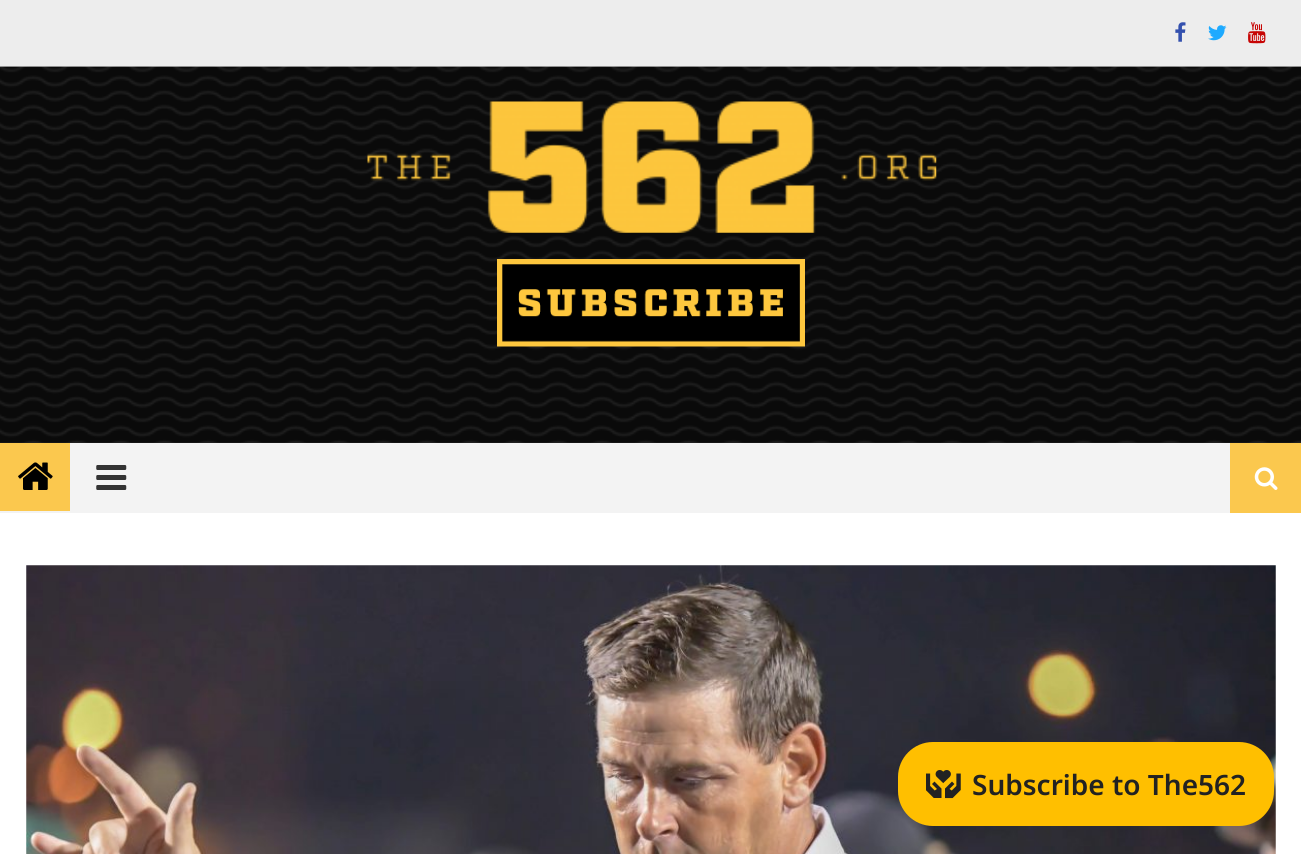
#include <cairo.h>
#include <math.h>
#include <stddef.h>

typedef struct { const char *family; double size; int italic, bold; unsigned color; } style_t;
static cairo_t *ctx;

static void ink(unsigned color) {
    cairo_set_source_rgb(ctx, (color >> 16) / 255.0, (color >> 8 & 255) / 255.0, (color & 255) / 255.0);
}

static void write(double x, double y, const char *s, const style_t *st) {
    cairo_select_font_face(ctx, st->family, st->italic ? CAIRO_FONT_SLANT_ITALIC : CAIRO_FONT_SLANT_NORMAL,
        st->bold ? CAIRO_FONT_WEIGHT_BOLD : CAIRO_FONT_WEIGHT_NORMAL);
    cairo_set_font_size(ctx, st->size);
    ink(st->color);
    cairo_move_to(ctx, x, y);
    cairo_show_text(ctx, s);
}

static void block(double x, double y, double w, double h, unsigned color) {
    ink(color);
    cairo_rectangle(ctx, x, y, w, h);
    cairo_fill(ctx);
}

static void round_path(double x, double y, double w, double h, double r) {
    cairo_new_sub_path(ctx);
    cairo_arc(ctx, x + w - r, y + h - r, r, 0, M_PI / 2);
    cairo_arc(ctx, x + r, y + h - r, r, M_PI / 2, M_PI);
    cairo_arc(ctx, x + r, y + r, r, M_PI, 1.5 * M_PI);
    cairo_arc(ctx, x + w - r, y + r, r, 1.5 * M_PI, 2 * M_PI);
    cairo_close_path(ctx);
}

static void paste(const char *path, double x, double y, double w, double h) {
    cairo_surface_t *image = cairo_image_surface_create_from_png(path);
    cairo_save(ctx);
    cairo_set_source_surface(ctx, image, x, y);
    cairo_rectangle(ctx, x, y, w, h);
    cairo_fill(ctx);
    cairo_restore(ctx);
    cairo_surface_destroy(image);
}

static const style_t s1 = {"Noto Sans SemiBold", 28, 0, 0, 0x222222};

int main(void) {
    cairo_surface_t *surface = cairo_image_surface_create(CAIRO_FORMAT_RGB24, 1301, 854);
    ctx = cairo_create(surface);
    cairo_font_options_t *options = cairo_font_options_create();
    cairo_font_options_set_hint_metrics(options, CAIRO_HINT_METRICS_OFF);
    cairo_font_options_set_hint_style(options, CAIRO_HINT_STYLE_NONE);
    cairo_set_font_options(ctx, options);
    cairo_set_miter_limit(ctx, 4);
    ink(0xffffff);
    cairo_paint(ctx);
    paste("pic1.png", 26, 565, 1250, 289);
    block(0, 0, 1301, 67, 0xededed);
    paste("pic2.png", 1175, 22, 11, 20);
    paste("pic3.png", 1208, 25, 19, 16);
    paste("pic4.png", 1248, 22, 18, 22);
    block(0, 443, 1230, 70, 0xf3f3f3);
    block(0, 443, 70, 68, 0xfbc84e);
    paste("pic5.png", 18, 462, 35, 28);
    paste("pic6.png", 96, 465, 31, 25);
    block(1230, 443, 71, 70, 0xfbc84e);
    paste("pic7.png", 1254, 467, 24, 23);
    block(0, 67, 1301, 376, 0x333333);
    paste("pic8.png", 0, 66, 1301, 377);
    paste("pic9.png", 367, 101, 570, 132);
    paste("pic10.png", 497, 259, 308, 88);
    ink(0xffbf00);
    round_path(898, 742, 376, 84, 35);
    cairo_fill(ctx);
    paste("pic11.png", 926, 770, 35, 29);
    write(972, 795, "Subscribe to The562", &s1);
    cairo_surface_write_to_png(surface, "screenshot.png");
    cairo_font_options_destroy(options);
    cairo_destroy(ctx);
    cairo_surface_destroy(surface);
    return 0;
}
